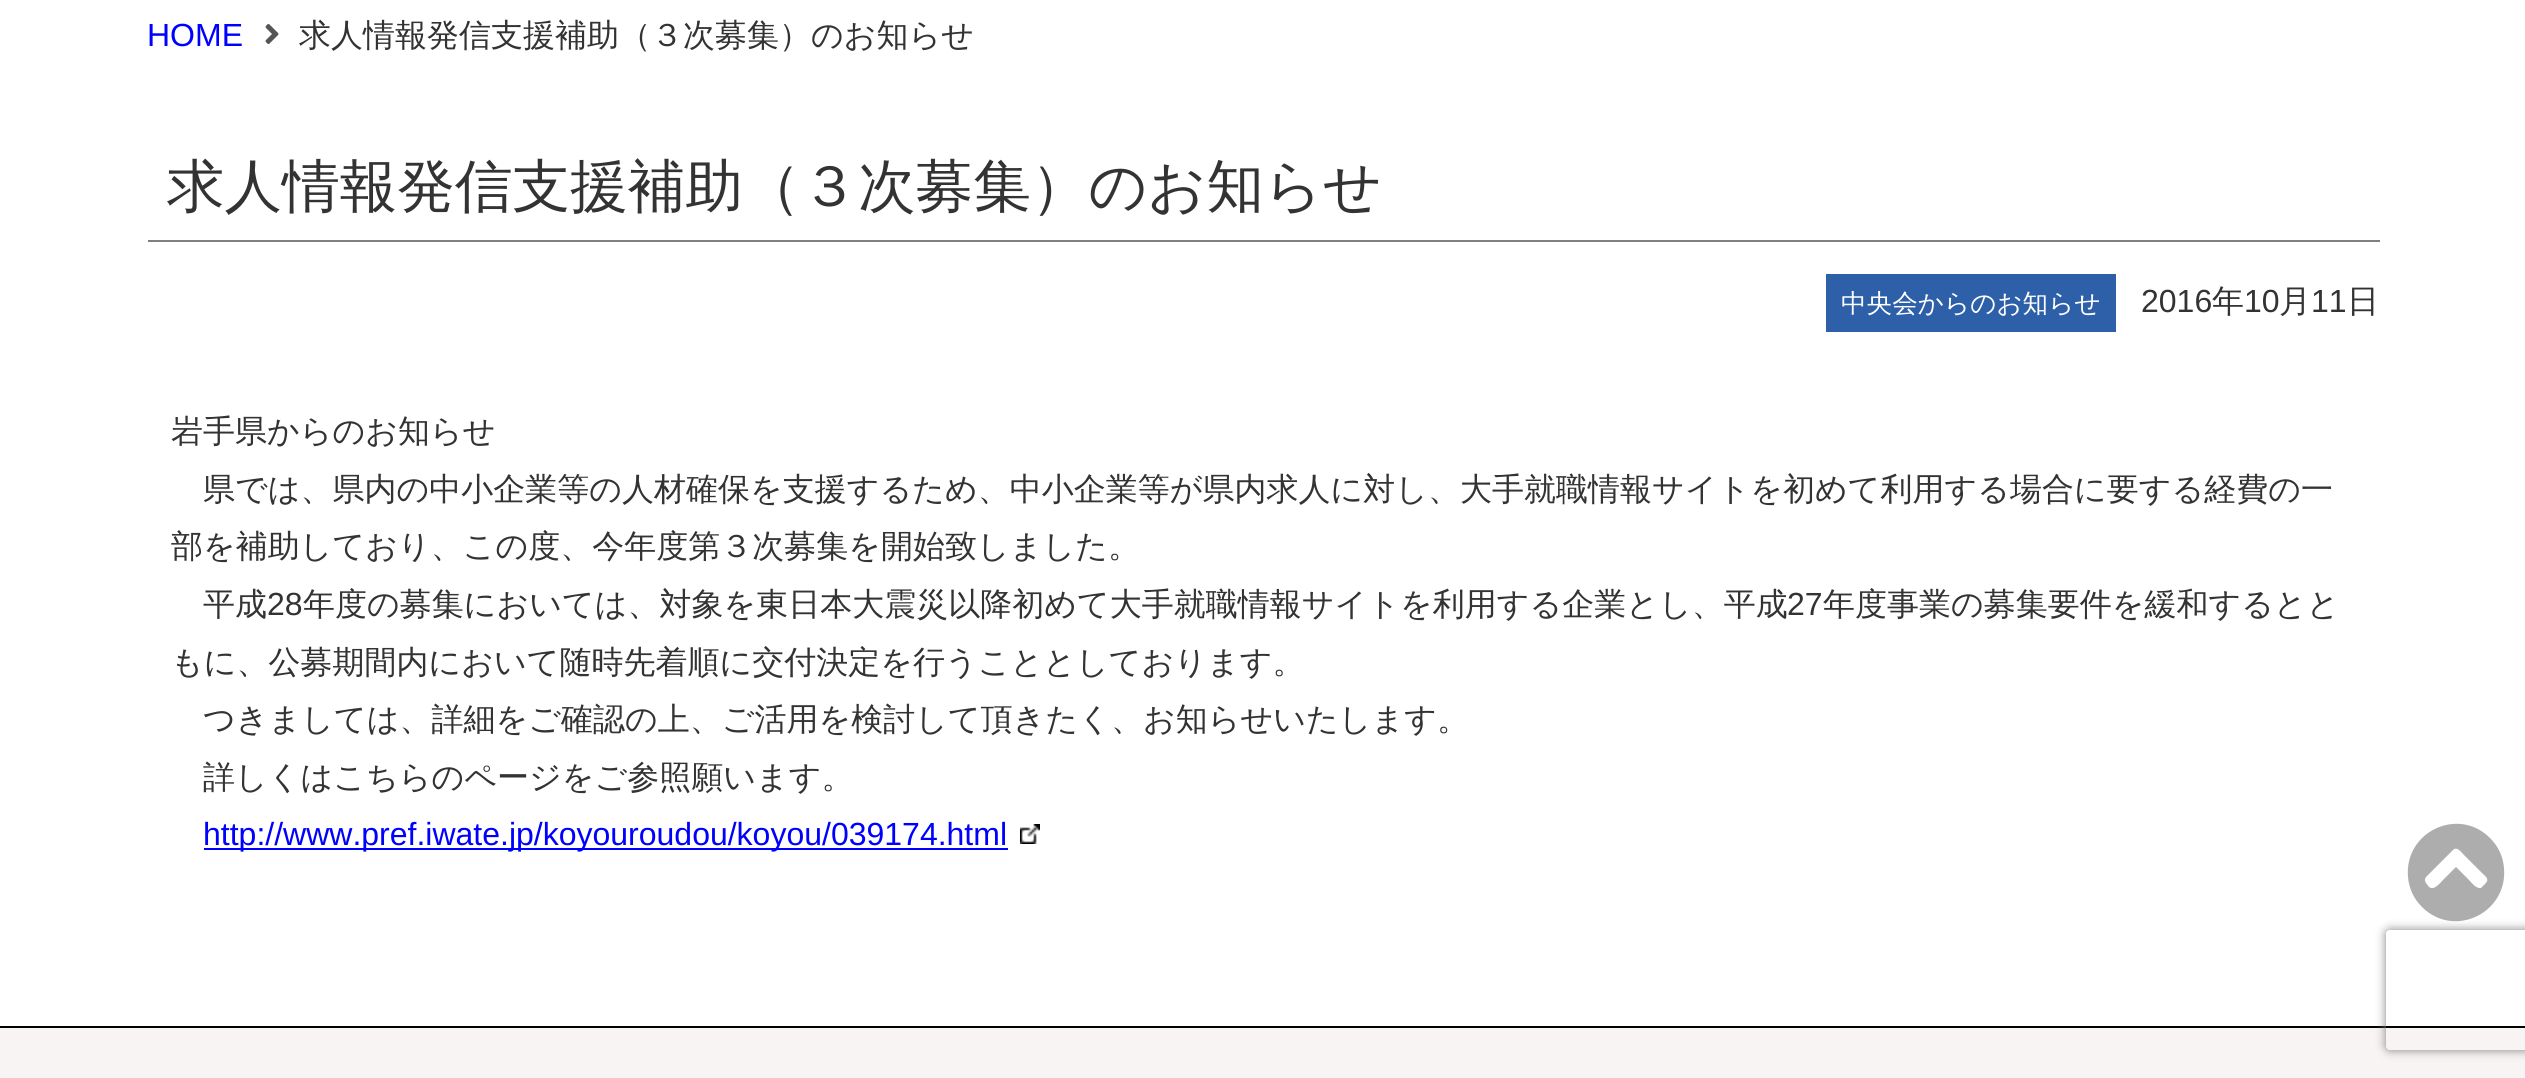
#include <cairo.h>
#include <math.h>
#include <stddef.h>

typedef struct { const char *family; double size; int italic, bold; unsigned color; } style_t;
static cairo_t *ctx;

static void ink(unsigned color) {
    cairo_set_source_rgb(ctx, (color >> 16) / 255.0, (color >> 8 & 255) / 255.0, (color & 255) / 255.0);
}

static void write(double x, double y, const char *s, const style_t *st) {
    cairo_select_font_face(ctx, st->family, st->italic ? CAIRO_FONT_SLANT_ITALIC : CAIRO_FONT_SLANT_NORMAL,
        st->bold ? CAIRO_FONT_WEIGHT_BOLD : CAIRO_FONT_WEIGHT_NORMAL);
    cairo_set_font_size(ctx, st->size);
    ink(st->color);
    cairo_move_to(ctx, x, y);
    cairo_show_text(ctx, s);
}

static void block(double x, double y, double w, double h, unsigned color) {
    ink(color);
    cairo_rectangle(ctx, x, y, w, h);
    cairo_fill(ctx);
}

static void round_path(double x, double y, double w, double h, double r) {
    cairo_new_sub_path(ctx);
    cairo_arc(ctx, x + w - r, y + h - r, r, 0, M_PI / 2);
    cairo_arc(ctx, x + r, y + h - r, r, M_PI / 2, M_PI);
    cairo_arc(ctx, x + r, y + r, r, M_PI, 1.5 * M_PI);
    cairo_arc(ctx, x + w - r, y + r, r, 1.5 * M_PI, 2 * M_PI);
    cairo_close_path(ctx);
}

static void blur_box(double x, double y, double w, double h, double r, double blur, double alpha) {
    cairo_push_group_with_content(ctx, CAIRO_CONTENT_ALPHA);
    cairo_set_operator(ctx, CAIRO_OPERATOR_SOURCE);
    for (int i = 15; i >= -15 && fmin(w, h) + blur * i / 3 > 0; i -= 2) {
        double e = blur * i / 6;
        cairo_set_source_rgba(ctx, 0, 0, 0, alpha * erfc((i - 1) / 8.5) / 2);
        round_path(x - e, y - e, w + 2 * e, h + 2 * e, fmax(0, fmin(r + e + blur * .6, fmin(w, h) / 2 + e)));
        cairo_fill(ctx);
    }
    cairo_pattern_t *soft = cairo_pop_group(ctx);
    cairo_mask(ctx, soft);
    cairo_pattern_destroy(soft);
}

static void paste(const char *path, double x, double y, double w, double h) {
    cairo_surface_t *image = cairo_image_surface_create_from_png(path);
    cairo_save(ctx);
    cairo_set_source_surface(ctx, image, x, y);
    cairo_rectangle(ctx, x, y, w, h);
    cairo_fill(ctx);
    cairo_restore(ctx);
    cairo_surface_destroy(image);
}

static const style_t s1 = {"Liberation Sans", 32, 0, 0, 0x0000ff};
static const style_t s2 = {"WenQuanYi Zen Hei Medium", 32, 0, 0, 0x333333};
static const style_t s3 = {"WenQuanYi Zen Hei Medium", 57.6, 0, 0, 0x333333};
static const style_t s4 = {"WenQuanYi Zen Hei Medium", 25.6, 0, 0, 0xffffff};
static const style_t s5 = {"Liberation Sans", 32, 0, 0, 0x333333};

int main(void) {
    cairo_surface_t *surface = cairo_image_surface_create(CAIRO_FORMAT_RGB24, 2525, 1078);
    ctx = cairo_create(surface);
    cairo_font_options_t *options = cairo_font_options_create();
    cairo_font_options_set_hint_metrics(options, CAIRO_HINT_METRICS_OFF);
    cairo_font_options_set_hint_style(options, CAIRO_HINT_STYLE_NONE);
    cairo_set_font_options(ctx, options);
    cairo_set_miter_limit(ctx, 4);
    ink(0xffffff);
    cairo_paint(ctx);
    write(147, 46, "HOME", &s1);
    paste("pic1.png", 265, 24, 14, 20);
    write(299, 46, "求人情報発信支援補助（３次募集）のお知らせ", &s2);
    block(148, 240, 2232, 2, 0x808080);
    write(167, 206, "求人情報発信支援補助（３次募集）のお知らせ", &s3);
    block(1826, 274, 290, 58, 0x2d60a8);
    write(1841, 312, "中央会からのお知らせ", &s4);
    write(2141, 312, "2016", &s5);
    write(2212, 312, "年", &s2);
    write(2244, 312, "10", &s5);
    write(2279, 312, "月", &s2);
    write(2311, 312, "11", &s5);
    write(2347, 312, "日", &s2);
    write(171, 442, "岩手県からのお知らせ", &s2);
    write(203, 500, "県では、県内の中小企業等の人材確保を支援するため、中小企業等が県内求人に対し、大手就職情報サイトを初めて利用する場合に要する経費の一", &s2);
    write(171, 557, "部を補助しており、この度、今年度第３次募集を開始致しました。", &s2);
    write(203, 615, "平成", &s2);
    write(267, 615, "28", &s5);
    write(303, 615, "年度の募集においては、対象を東日本大震災以降初めて大手就職情報サイトを利用する企業とし、平成", &s2);
    write(1787, 615, "27", &s5);
    write(1823, 615, "年度事業の募集要件を緩和するとと", &s2);
    write(171, 673, "もに、公募期間内において随時先着順に交付決定を行うこととしております。", &s2);
    write(203, 730, "つきましては、詳細をご確認の上、ご活用を検討して頂きたく、お知らせいたします。", &s2);
    write(203, 788, "詳しくはこちらのページをご参照願います。", &s2);
    block(204, 848, 804, 2, 0x0000ff);
    write(203, 845, "http://www.pref.iwate.jp/koyouroudou/koyou/039174.html", &s1);
    paste("pic2.png", 1020, 824, 20, 20);
    ink(0xadadad);
    cairo_new_path(ctx);
    cairo_move_to(ctx, 2422, 907);
    cairo_curve_to(ctx, 2414, 899, 2409, 889, 2408, 877);
    cairo_curve_to(ctx, 2404, 832, 2458, 806, 2490, 838);
    cairo_curve_to(ctx, 2498, 846, 2503, 856, 2504, 868);
    cairo_curve_to(ctx, 2508, 913, 2454, 939, 2422, 907);
    cairo_close_path(ctx);
    cairo_move_to(ctx, 2453, 850);
    cairo_line_to(ctx, 2426, 877);
    cairo_curve_to(ctx, 2423, 881, 2427, 884, 2429, 887);
    cairo_curve_to(ctx, 2434, 891, 2440, 883, 2443, 880);
    cairo_line_to(ctx, 2456, 867);
    cairo_line_to(ctx, 2469, 880);
    cairo_curve_to(ctx, 2471, 882, 2476, 889, 2481, 888);
    cairo_line_to(ctx, 2485, 884);
    cairo_curve_to(ctx, 2490, 879, 2486, 877, 2481, 872);
    cairo_line_to(ctx, 2464, 855);
    cairo_curve_to(ctx, 2461, 852, 2457, 846, 2453, 850);
    cairo_close_path(ctx);
    cairo_fill(ctx);
    block(0, 1028, 2525, 50, 0xf9f4f4);
    block(0, 1026, 2525, 2, 0x000000);
    cairo_save(ctx);
    cairo_set_fill_rule(ctx, CAIRO_FILL_RULE_EVEN_ODD);
    cairo_new_path(ctx);
    cairo_move_to(ctx, 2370, 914);
    cairo_line_to(ctx, 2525, 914);
    cairo_line_to(ctx, 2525, 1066);
    cairo_line_to(ctx, 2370, 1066);
    cairo_close_path(ctx);
    cairo_move_to(ctx, 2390, 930);
    cairo_line_to(ctx, 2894, 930);
    cairo_curve_to(ctx, 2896, 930, 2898, 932, 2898, 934);
    cairo_line_to(ctx, 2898, 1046);
    cairo_curve_to(ctx, 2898, 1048, 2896, 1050, 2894, 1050);
    cairo_line_to(ctx, 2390, 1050);
    cairo_curve_to(ctx, 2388, 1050, 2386, 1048, 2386, 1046);
    cairo_line_to(ctx, 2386, 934);
    cairo_curve_to(ctx, 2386, 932, 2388, 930, 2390, 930);
    cairo_close_path(ctx);
    cairo_clip(ctx);
    ink(0x808080);
    blur_box(2386, 930, 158, 120, 4, 5, 1);
    cairo_restore(ctx);
    cairo_surface_write_to_png(surface, "screenshot.png");
    cairo_font_options_destroy(options);
    cairo_destroy(ctx);
    cairo_surface_destroy(surface);
    return 0;
}
